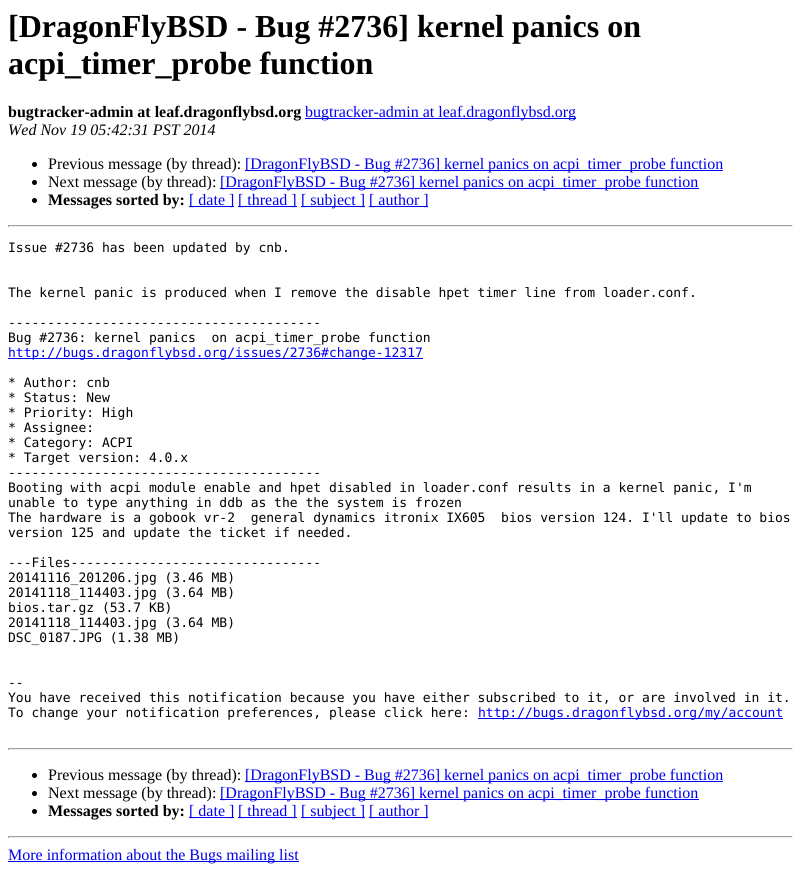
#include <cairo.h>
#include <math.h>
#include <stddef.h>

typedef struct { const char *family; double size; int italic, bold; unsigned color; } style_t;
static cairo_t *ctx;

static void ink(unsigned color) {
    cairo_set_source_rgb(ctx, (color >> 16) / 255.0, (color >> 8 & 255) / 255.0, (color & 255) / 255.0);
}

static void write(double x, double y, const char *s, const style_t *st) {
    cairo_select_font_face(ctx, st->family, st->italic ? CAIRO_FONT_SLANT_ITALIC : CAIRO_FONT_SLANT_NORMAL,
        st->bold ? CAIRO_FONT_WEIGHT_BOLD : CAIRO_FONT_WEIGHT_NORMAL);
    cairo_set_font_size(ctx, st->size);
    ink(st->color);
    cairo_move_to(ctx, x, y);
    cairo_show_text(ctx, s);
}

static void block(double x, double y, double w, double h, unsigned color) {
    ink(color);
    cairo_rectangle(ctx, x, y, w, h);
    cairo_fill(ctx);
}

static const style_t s1 = {"Liberation Serif", 32, 0, 1, 0x000000};
static const style_t s2 = {"Liberation Serif", 16, 0, 1, 0x000000};
static const style_t s3 = {"Liberation Serif", 16, 0, 0, 0x0000ee};
static const style_t s4 = {"Liberation Serif", 16, 1, 0, 0x000000};
static const style_t s5 = {"Liberation Serif", 16, 0, 0, 0x000000};
static const style_t s6 = {"DejaVu Sans Mono", 13, 0, 0, 0x000000};
static const style_t s7 = {"DejaVu Sans Mono", 13, 0, 0, 0x0000ee};

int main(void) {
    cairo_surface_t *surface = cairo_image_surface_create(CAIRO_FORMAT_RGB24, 801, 895);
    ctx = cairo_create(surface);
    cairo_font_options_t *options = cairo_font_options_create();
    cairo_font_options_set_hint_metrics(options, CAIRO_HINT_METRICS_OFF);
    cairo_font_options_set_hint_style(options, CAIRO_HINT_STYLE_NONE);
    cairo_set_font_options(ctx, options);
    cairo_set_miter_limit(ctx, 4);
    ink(0xffffff);
    cairo_paint(ctx);
    write(8, 37, "[DragonFlyBSD - Bug #2736] kernel panics on", &s1);
    write(8, 74, "acpi_timer_probe function", &s1);
    write(8, 117, "bugtracker-admin at leaf.dragonflybsd.org", &s2);
    block(305, 118, 271, 1, 0x0000ee);
    write(305, 117, "bugtracker-admin at leaf.dragonflybsd.org", &s3);
    write(8, 135, "Wed Nov 19 05:42:31 PST 2014", &s4);
    cairo_new_path(ctx);
    cairo_arc(ctx, 34.5, 164.5, 2.5, 0, 2 * M_PI);
    cairo_fill(ctx);
    write(48, 169, "Previous message (by thread):", &s5);
    block(245, 170, 478, 1, 0x0000ee);
    write(245, 169, "[DragonFlyBSD - Bug #2736] kernel panics on acpi_timer_probe function", &s3);
    ink(0x000000);
    cairo_new_path(ctx);
    cairo_arc(ctx, 34.5, 182.5, 2.5, 0, 2 * M_PI);
    cairo_fill(ctx);
    write(48, 187, "Next message (by thread):", &s5);
    block(220, 188, 479, 1, 0x0000ee);
    write(220, 187, "[DragonFlyBSD - Bug #2736] kernel panics on acpi_timer_probe function", &s3);
    ink(0x000000);
    cairo_new_path(ctx);
    cairo_arc(ctx, 34.5, 200.5, 2.5, 0, 2 * M_PI);
    cairo_fill(ctx);
    write(48, 205, "Messages sorted by:", &s2);
    block(189, 206, 45, 1, 0x0000ee);
    write(189, 205, "[ date ]", &s3);
    block(238, 206, 59, 1, 0x0000ee);
    write(238, 205, "[ thread ]", &s3);
    block(301, 206, 64, 1, 0x0000ee);
    write(301, 205, "[ subject ]", &s3);
    block(369, 206, 59, 1, 0x0000ee);
    write(369, 205, "[ author ]", &s3);
    block(8, 225, 785, 1, 0x9f9f9f);
    block(792, 225, 1, 2, 0xeeeeee);
    block(8, 226, 785, 1, 0xeeeeee);
    block(8, 225, 1, 2, 0x9f9f9f);
    write(8, 252, "Issue #2736 has been updated by cnb.", &s6);
    write(8, 297, "The kernel panic is produced when I remove the disable hpet timer line from loader.conf.", &s6);
    write(8, 327, "----------------------------------------", &s6);
    write(8, 342, "Bug #2736: kernel panics  on acpi_timer_probe function", &s6);
    block(8, 358, 415, 1, 0x0000ee);
    write(8, 357, "http://bugs.dragonflybsd.org/issues/2736#change-12317", &s7);
    write(8, 387, "* Author: cnb", &s6);
    write(8, 402, "* Status: New", &s6);
    write(8, 417, "* Priority: High", &s6);
    write(8, 432, "* Assignee:", &s6);
    write(8, 447, "* Category: ACPI", &s6);
    write(8, 462, "* Target version: 4.0.x", &s6);
    write(8, 477, "----------------------------------------", &s6);
    write(8, 492, "Booting with acpi module enable and hpet disabled in loader.conf results in a kernel panic, I'm", &s6);
    write(8, 507, "unable to type anything in ddb as the the system is frozen", &s6);
    write(8, 522, "The hardware is a gobook vr-2  general dynamics itronix IX605  bios version 124. I'll update to bios", &s6);
    write(8, 537, "version 125 and update the ticket if needed.", &s6);
    write(8, 567, "---Files--------------------------------", &s6);
    write(8, 582, "20141116_201206.jpg (3.46 MB)", &s6);
    write(8, 597, "20141118_114403.jpg (3.64 MB)", &s6);
    write(8, 612, "bios.tar.gz (53.7 KB)", &s6);
    write(8, 627, "20141118_114403.jpg (3.64 MB)", &s6);
    write(8, 642, "DSC_0187.JPG (1.38 MB)", &s6);
    write(8, 687, "--", &s6);
    write(8, 702, "You have received this notification because you have either subscribed to it, or are involved in it.", &s6);
    write(8, 717, "To change your notification preferences, please click here:", &s6);
    block(478, 718, 305, 1, 0x0000ee);
    write(478, 717, "http://bugs.dragonflybsd.org/my/account", &s7);
    block(8, 748, 785, 1, 0x9f9f9f);
    block(792, 748, 1, 2, 0xeeeeee);
    block(8, 749, 785, 1, 0xeeeeee);
    block(8, 748, 1, 2, 0x9f9f9f);
    ink(0x000000);
    cairo_new_path(ctx);
    cairo_arc(ctx, 34.5, 775.5, 2.5, 0, 2 * M_PI);
    cairo_fill(ctx);
    write(48, 780, "Previous message (by thread):", &s5);
    block(245, 781, 478, 1, 0x0000ee);
    write(245, 780, "[DragonFlyBSD - Bug #2736] kernel panics on acpi_timer_probe function", &s3);
    ink(0x000000);
    cairo_new_path(ctx);
    cairo_arc(ctx, 34.5, 793.5, 2.5, 0, 2 * M_PI);
    cairo_fill(ctx);
    write(48, 798, "Next message (by thread):", &s5);
    block(220, 799, 479, 1, 0x0000ee);
    write(220, 798, "[DragonFlyBSD - Bug #2736] kernel panics on acpi_timer_probe function", &s3);
    ink(0x000000);
    cairo_new_path(ctx);
    cairo_arc(ctx, 34.5, 811.5, 2.5, 0, 2 * M_PI);
    cairo_fill(ctx);
    write(48, 816, "Messages sorted by:", &s2);
    block(189, 817, 45, 1, 0x0000ee);
    write(189, 816, "[ date ]", &s3);
    block(238, 817, 59, 1, 0x0000ee);
    write(238, 816, "[ thread ]", &s3);
    block(301, 817, 64, 1, 0x0000ee);
    write(301, 816, "[ subject ]", &s3);
    block(369, 817, 59, 1, 0x0000ee);
    write(369, 816, "[ author ]", &s3);
    block(8, 836, 785, 1, 0x9f9f9f);
    block(792, 836, 1, 2, 0xeeeeee);
    block(8, 837, 785, 1, 0xeeeeee);
    block(8, 836, 1, 2, 0x9f9f9f);
    block(8, 861, 291, 1, 0x0000ee);
    write(8, 860, "More information about the Bugs mailing list", &s3);
    cairo_surface_write_to_png(surface, "screenshot.png");
    cairo_font_options_destroy(options);
    cairo_destroy(ctx);
    cairo_surface_destroy(surface);
    return 0;
}
